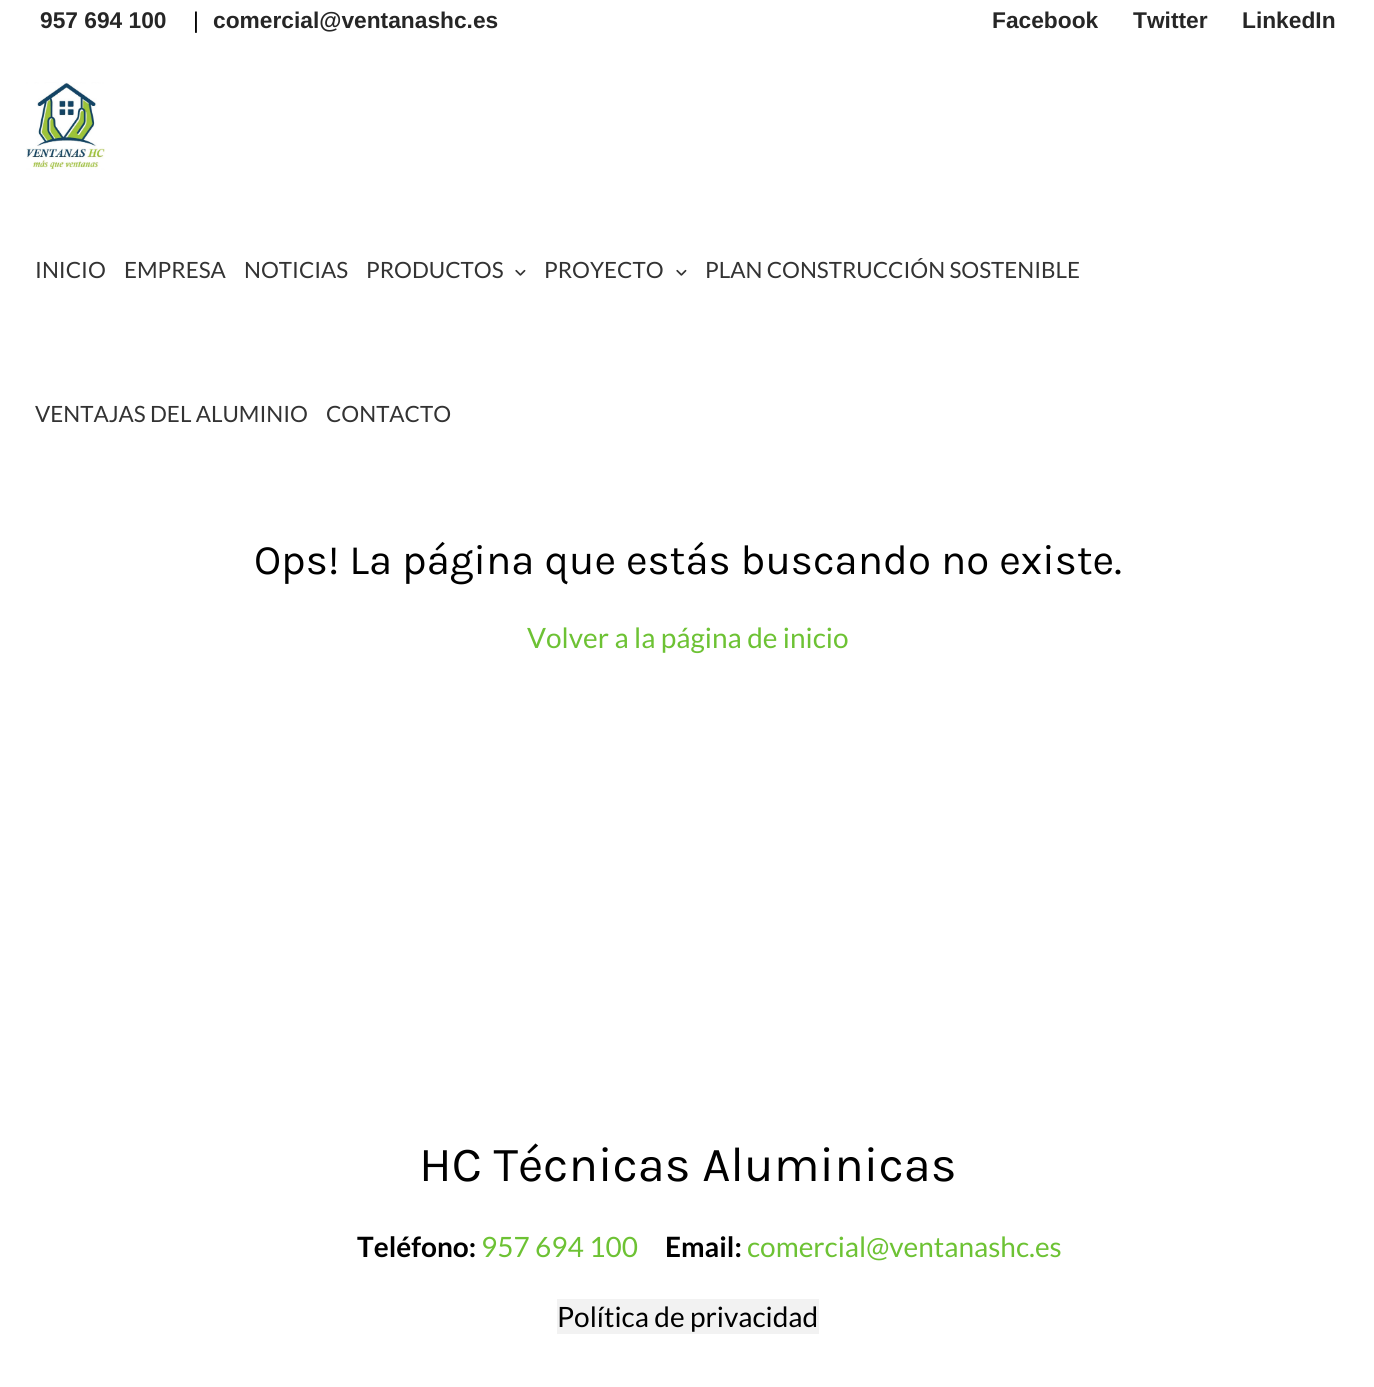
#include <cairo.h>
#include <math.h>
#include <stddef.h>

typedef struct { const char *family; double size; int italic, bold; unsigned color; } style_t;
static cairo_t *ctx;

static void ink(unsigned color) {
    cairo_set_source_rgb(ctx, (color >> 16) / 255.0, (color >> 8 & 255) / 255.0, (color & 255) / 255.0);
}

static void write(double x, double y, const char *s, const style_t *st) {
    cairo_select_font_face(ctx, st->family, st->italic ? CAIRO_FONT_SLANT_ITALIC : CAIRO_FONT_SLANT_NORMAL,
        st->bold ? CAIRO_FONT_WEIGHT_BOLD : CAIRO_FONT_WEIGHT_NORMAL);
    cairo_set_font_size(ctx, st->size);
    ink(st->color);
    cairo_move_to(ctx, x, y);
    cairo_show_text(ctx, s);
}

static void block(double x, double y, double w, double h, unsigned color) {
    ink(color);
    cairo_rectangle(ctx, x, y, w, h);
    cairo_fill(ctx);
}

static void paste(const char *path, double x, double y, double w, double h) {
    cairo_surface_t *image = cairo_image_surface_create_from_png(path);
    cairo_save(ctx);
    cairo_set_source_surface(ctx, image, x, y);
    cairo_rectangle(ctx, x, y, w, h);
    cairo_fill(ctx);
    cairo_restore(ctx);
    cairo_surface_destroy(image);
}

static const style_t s1 = {"Liberation Sans", 22.75, 0, 1, 0x262626};
static const style_t s2 = {"Liberation Sans", 22.75, 0, 0, 0x000000};
static const style_t s3 = {"Lato", 22.4, 0, 0, 0x333333};
static const style_t s4 = {"Karla", 42, 0, 0, 0x000000};
static const style_t s5 = {"Lato", 28, 0, 0, 0x6dc234};
static const style_t s6 = {"Karla", 49, 0, 0, 0x000000};
static const style_t s7 = {"Lato", 28, 0, 1, 0x000000};
static const style_t s8 = {"Lato", 28, 0, 0, 0x000000};

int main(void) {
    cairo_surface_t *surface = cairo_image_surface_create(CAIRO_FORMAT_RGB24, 1374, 1387);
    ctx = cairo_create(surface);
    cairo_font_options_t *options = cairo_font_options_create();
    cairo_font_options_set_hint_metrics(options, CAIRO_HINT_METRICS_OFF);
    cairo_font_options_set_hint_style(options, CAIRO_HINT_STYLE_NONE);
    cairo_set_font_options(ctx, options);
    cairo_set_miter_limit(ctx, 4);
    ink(0xffffff);
    cairo_paint(ctx);
    write(40, 28, "957 694 100", &s1);
    write(193, 28, "|", &s2);
    write(213, 28, "comercial@ventanashc.es", &s1);
    write(992, 28, "Facebook", &s1);
    write(1133, 28, "Twitter", &s1);
    write(1242, 28, "LinkedIn", &s1);
    paste("pic1.png", 26, 82, 79, 88);
    write(35, 278, "INICIO", &s3);
    write(124, 278, "EMPRESA", &s3);
    write(244, 278, "NOTICIAS", &s3);
    write(366, 278, "PRODUCTOS", &s3);
    paste("pic2.png", 515, 269, 11, 7);
    write(544, 278, "PROYECTO", &s3);
    paste("pic2.png", 676, 269, 11, 7);
    write(705, 278, "PLAN CONSTRUCCIÓN SOSTENIBLE", &s3);
    write(35, 422, "VENTAJAS DEL ALUMINIO", &s3);
    write(326, 422, "CONTACTO", &s3);
    write(254, 574, "Ops! La página que estás buscando no existe.", &s4);
    write(527, 648, "Volver a la página de inicio", &s5);
    write(419, 1181, "HC Técnicas Aluminicas", &s6);
    write(357, 1257, "Teléfono:", &s7);
    write(481, 1257, "957 694 100", &s5);
    write(665, 1257, "Email:", &s7);
    write(747, 1257, "comercial@ventanashc.es", &s5);
    block(557, 1299, 262, 35, 0xf2f2f2);
    write(557, 1327, "Política de privacidad", &s8);
    cairo_surface_write_to_png(surface, "screenshot.png");
    cairo_font_options_destroy(options);
    cairo_destroy(ctx);
    cairo_surface_destroy(surface);
    return 0;
}
